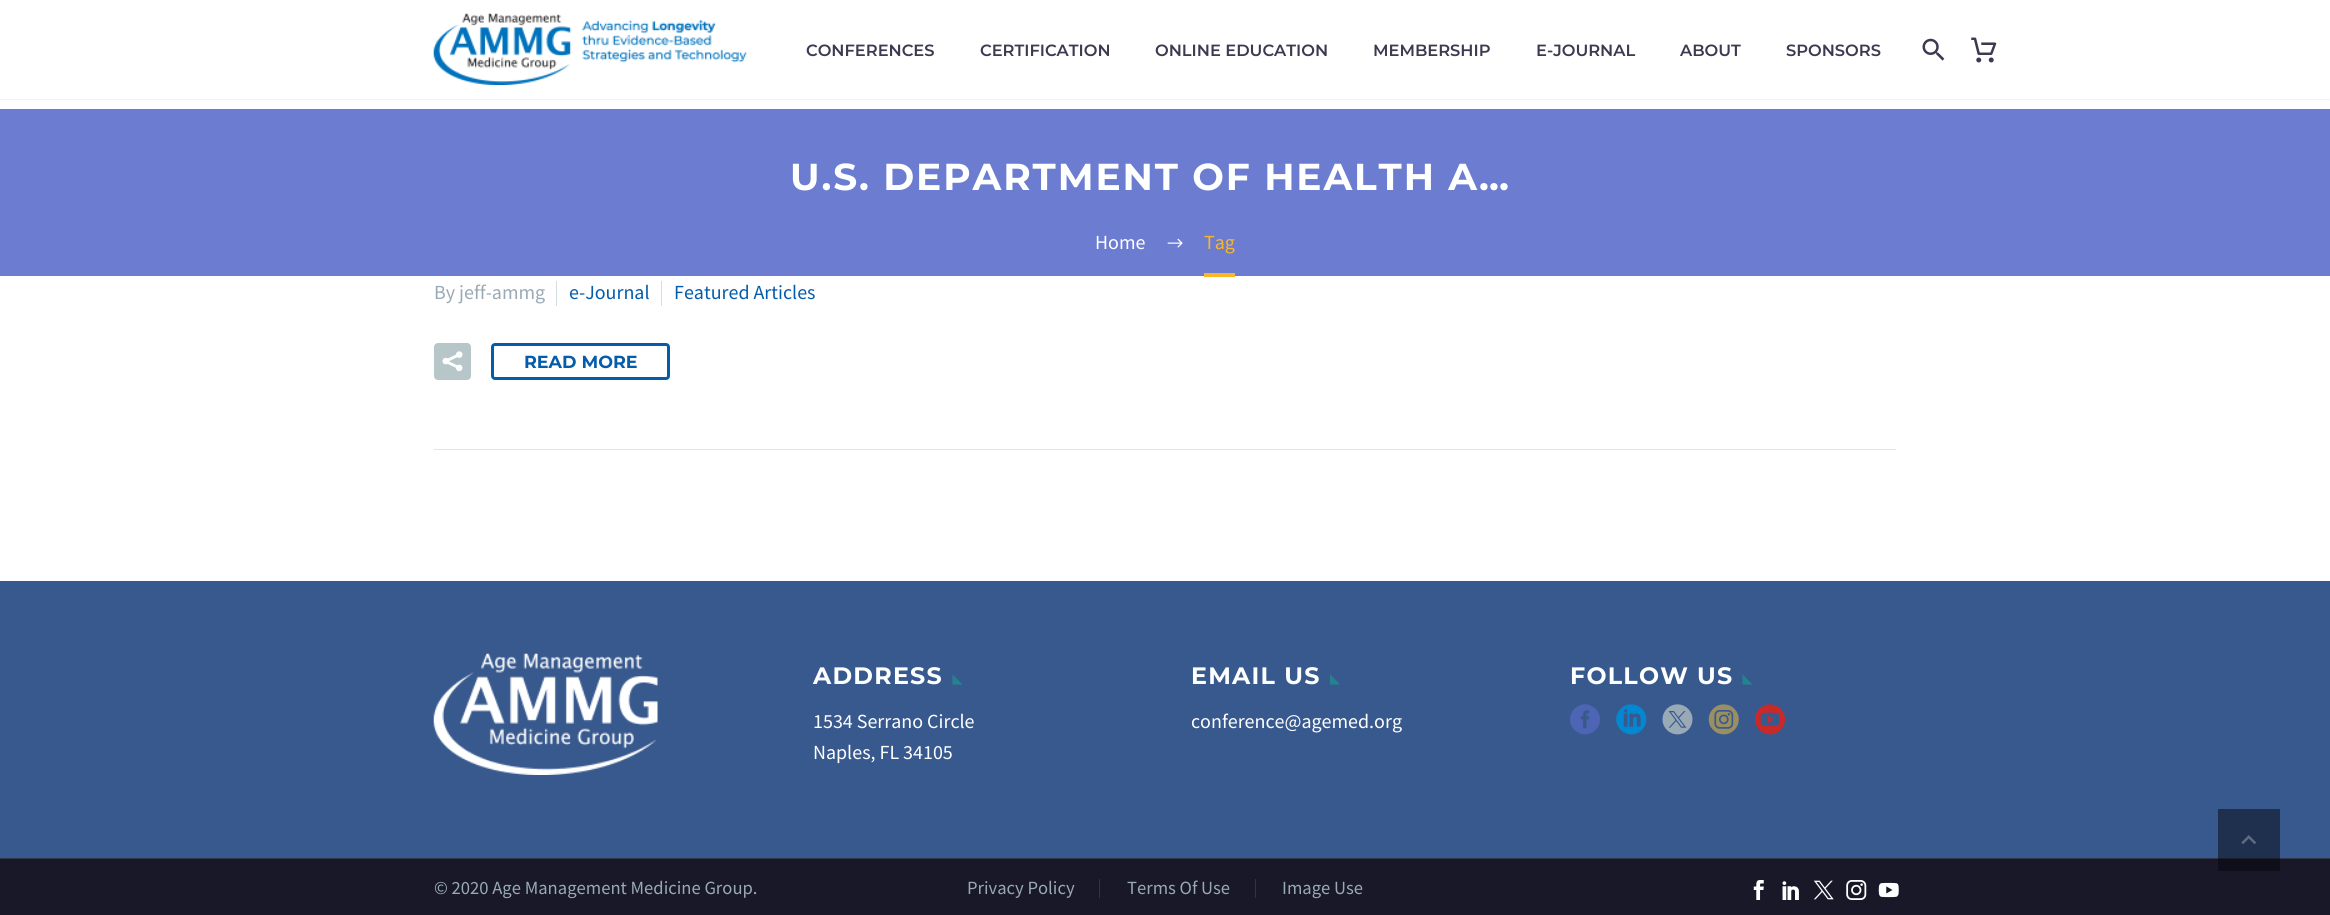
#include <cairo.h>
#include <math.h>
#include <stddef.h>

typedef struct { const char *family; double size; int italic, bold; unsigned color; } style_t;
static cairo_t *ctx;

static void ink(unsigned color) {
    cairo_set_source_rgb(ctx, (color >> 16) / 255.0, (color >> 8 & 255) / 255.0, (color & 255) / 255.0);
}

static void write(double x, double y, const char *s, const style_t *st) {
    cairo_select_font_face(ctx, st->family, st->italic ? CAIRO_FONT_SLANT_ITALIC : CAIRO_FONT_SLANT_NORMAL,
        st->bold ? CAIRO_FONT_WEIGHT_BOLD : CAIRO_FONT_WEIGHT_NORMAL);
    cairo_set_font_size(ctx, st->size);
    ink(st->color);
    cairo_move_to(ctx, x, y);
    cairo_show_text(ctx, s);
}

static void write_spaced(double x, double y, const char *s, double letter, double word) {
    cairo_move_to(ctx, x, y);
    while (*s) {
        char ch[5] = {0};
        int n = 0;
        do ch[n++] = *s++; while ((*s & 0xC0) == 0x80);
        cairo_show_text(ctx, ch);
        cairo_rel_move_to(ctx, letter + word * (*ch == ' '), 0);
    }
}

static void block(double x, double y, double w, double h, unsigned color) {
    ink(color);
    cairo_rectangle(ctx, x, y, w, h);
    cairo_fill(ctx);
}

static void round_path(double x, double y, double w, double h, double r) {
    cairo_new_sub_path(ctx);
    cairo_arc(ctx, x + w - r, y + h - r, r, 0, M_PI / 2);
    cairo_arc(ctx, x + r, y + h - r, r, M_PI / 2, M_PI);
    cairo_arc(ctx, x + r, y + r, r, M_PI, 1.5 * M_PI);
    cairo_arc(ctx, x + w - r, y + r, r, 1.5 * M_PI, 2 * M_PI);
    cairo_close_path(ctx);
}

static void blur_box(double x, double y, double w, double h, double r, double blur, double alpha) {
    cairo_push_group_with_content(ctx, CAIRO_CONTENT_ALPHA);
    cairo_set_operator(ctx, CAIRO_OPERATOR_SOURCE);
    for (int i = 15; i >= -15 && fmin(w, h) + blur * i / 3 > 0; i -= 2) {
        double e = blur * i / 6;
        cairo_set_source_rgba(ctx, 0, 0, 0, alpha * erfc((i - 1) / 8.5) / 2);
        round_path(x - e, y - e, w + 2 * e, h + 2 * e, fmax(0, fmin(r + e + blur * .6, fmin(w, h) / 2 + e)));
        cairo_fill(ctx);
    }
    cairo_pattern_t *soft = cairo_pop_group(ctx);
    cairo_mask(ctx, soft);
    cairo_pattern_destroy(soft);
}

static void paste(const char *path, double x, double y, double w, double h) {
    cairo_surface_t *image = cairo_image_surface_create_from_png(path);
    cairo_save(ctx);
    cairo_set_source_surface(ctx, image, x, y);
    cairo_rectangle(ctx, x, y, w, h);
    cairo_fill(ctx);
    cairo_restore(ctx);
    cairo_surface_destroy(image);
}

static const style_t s1 = {"Montserrat SemiBold", 16.25, 0, 0, 0x3c3950};
static const style_t s2 = {"Source Sans Pro", 20, 0, 0, 0xfeffff};
static const style_t s3 = {"Source Sans Pro", 20, 0, 0, 0xfab625};
static const style_t s4 = {"Source Sans Pro", 20, 0, 0, 0x99a9b5};
static const style_t s5 = {"Source Sans Pro", 20, 0, 0, 0x045cab};
static const style_t s6 = {"Montserrat", 17.5, 0, 1, 0x045cab};
static const style_t s7 = {"Source Sans Pro", 18.6, 0, 0, 0x99a9b5};

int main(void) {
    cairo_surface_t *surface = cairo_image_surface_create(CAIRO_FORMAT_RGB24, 2330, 915);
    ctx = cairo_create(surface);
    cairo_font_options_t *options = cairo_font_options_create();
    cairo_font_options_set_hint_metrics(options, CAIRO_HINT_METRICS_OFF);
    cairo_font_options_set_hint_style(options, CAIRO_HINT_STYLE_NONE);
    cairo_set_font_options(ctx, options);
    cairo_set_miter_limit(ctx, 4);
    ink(0xffffff);
    cairo_paint(ctx);
    ink(0x384554);
    blur_box(0, 0, 2330, 99, 0, 1, 0.2);
    block(0, 0, 2330, 99, 0xffffff);
    paste("pic1.png", 433, 13, 314, 72);
    write(806, 56, "CONFERENCES", &s1);
    write(980, 56, "CERTIFICATION", &s1);
    write(1155, 56, "ONLINE EDUCATION", &s1);
    write(1373, 56, "MEMBERSHIP", &s1);
    write(1536, 56, "E-JOURNAL", &s1);
    write(1680, 56, "ABOUT", &s1);
    write(1786, 56, "SPONSORS", &s1);
    paste("pic2.png", 1922, 38, 23, 23);
    paste("pic3.png", 1971, 37, 26, 26);
    block(0, 109, 2330, 167, 0x6c7cd0);
    cairo_select_font_face(ctx, "Montserrat", CAIRO_FONT_SLANT_NORMAL, CAIRO_FONT_WEIGHT_BOLD);
    cairo_set_font_size(ctx, 37.5);
    ink(0xfeffff);
    write_spaced(790, 190, "U.S. DEPARTMENT OF HEALTH A…", 1.9, 0);
    write(1095, 249, "Home", &s2);
    paste("pic4.png", 1167, 238, 16, 10);
    block(1204, 273, 31, 4, 0xfab625);
    write(1204, 249, "Tag", &s3);
    block(434, 449, 1462, 1, 0xdfe5e8);
    write(434, 299, "By jeff-ammg", &s4);
    block(556, 281, 1, 25, 0xd4dee1);
    write(569, 299, "e-Journal", &s5);
    block(661, 281, 1, 25, 0xd4dee1);
    write(674, 299, "Featured Articles", &s5);
    ink(0xb6c6c9);
    round_path(434, 343, 37, 37, 4);
    cairo_fill(ctx);
    paste("pic5.png", 442, 351, 21, 21);
    round_path(492.5, 344.5, 176, 34, 2.5);
    ink(0x045cab);
    cairo_set_line_width(ctx, 3);
    cairo_stroke(ctx);
    write(524, 368, "READ MORE", &s6);
    block(0, 581, 2330, 277, 0x38598e);
    block(2218, 809, 62, 49, 0x1f304f);
    paste("pic6.png", 433, 653, 225, 122);
    cairo_set_font_size(ctx, 23.75);
    ink(0xfeffff);
    write_spaced(813, 684, "ADDRESS", 1.25, 0);
    ink(0x22858d);
    cairo_new_path(ctx);
    cairo_move_to(ctx, 952.5, 674.5);
    cairo_line_to(ctx, 952.5, 684.5);
    cairo_line_to(ctx, 962.5, 684.5);
    cairo_close_path(ctx);
    cairo_fill(ctx);
    write(813, 728, "1534 Serrano Circle", &s2);
    write(813, 759, "Naples, FL 34105", &s2);
    cairo_select_font_face(ctx, "Montserrat", CAIRO_FONT_SLANT_NORMAL, CAIRO_FONT_WEIGHT_BOLD);
    cairo_set_font_size(ctx, 23.75);
    write_spaced(1191, 684, "EMAIL US", 1.25, 0);
    ink(0x22858d);
    cairo_new_path(ctx);
    cairo_move_to(ctx, 1330, 674.5);
    cairo_line_to(ctx, 1330, 684.5);
    cairo_line_to(ctx, 1340, 684.5);
    cairo_close_path(ctx);
    cairo_fill(ctx);
    write(1191, 728, "conference@agemed.org", &s2);
    cairo_select_font_face(ctx, "Montserrat", CAIRO_FONT_SLANT_NORMAL, CAIRO_FONT_WEIGHT_BOLD);
    cairo_set_font_size(ctx, 23.75);
    write_spaced(1570, 684, "FOLLOW US", 1.25, 0);
    ink(0x22858d);
    cairo_new_path(ctx);
    cairo_move_to(ctx, 1742.5, 674.5);
    cairo_line_to(ctx, 1742.5, 684.5);
    cairo_line_to(ctx, 1752.5, 684.5);
    cairo_close_path(ctx);
    cairo_fill(ctx);
    paste("pic7.png", 1570, 704, 30, 31);
    paste("pic8.png", 1616, 704, 31, 31);
    paste("pic9.png", 1662, 704, 31, 31);
    paste("pic10.png", 1708, 704, 31, 31);
    paste("pic11.png", 1755, 704, 30, 31);
    paste("pic12.png", 2241, 835, 15, 10);
    block(0, 859, 2330, 56, 0x181828);
    block(2218, 859, 62, 12, 0x0f0f1c);
    block(0, 858, 2330, 1, 0x313646);
    block(2218, 858, 62, 1, 0x1c1e2b);
    write(434, 894, "© 2020 Age Management Medicine Group.", &s7);
    write(967, 894, "Privacy Policy", &s7);
    block(1099, 879, 1, 19, 0x333146);
    write(1127, 894, "Terms Of Use", &s7);
    block(1255, 879, 1, 19, 0x333146);
    write(1282, 894, "Image Use", &s7);
    paste("pic13.png", 1753, 880, 11, 20);
    paste("pic14.png", 1782, 881, 17, 19);
    paste("pic15.png", 1813, 880, 21, 20);
    paste("pic16.png", 1846, 880, 21, 20);
    paste("pic17.png", 1878, 882, 21, 16);
    cairo_surface_write_to_png(surface, "screenshot.png");
    cairo_font_options_destroy(options);
    cairo_destroy(ctx);
    cairo_surface_destroy(surface);
    return 0;
}
